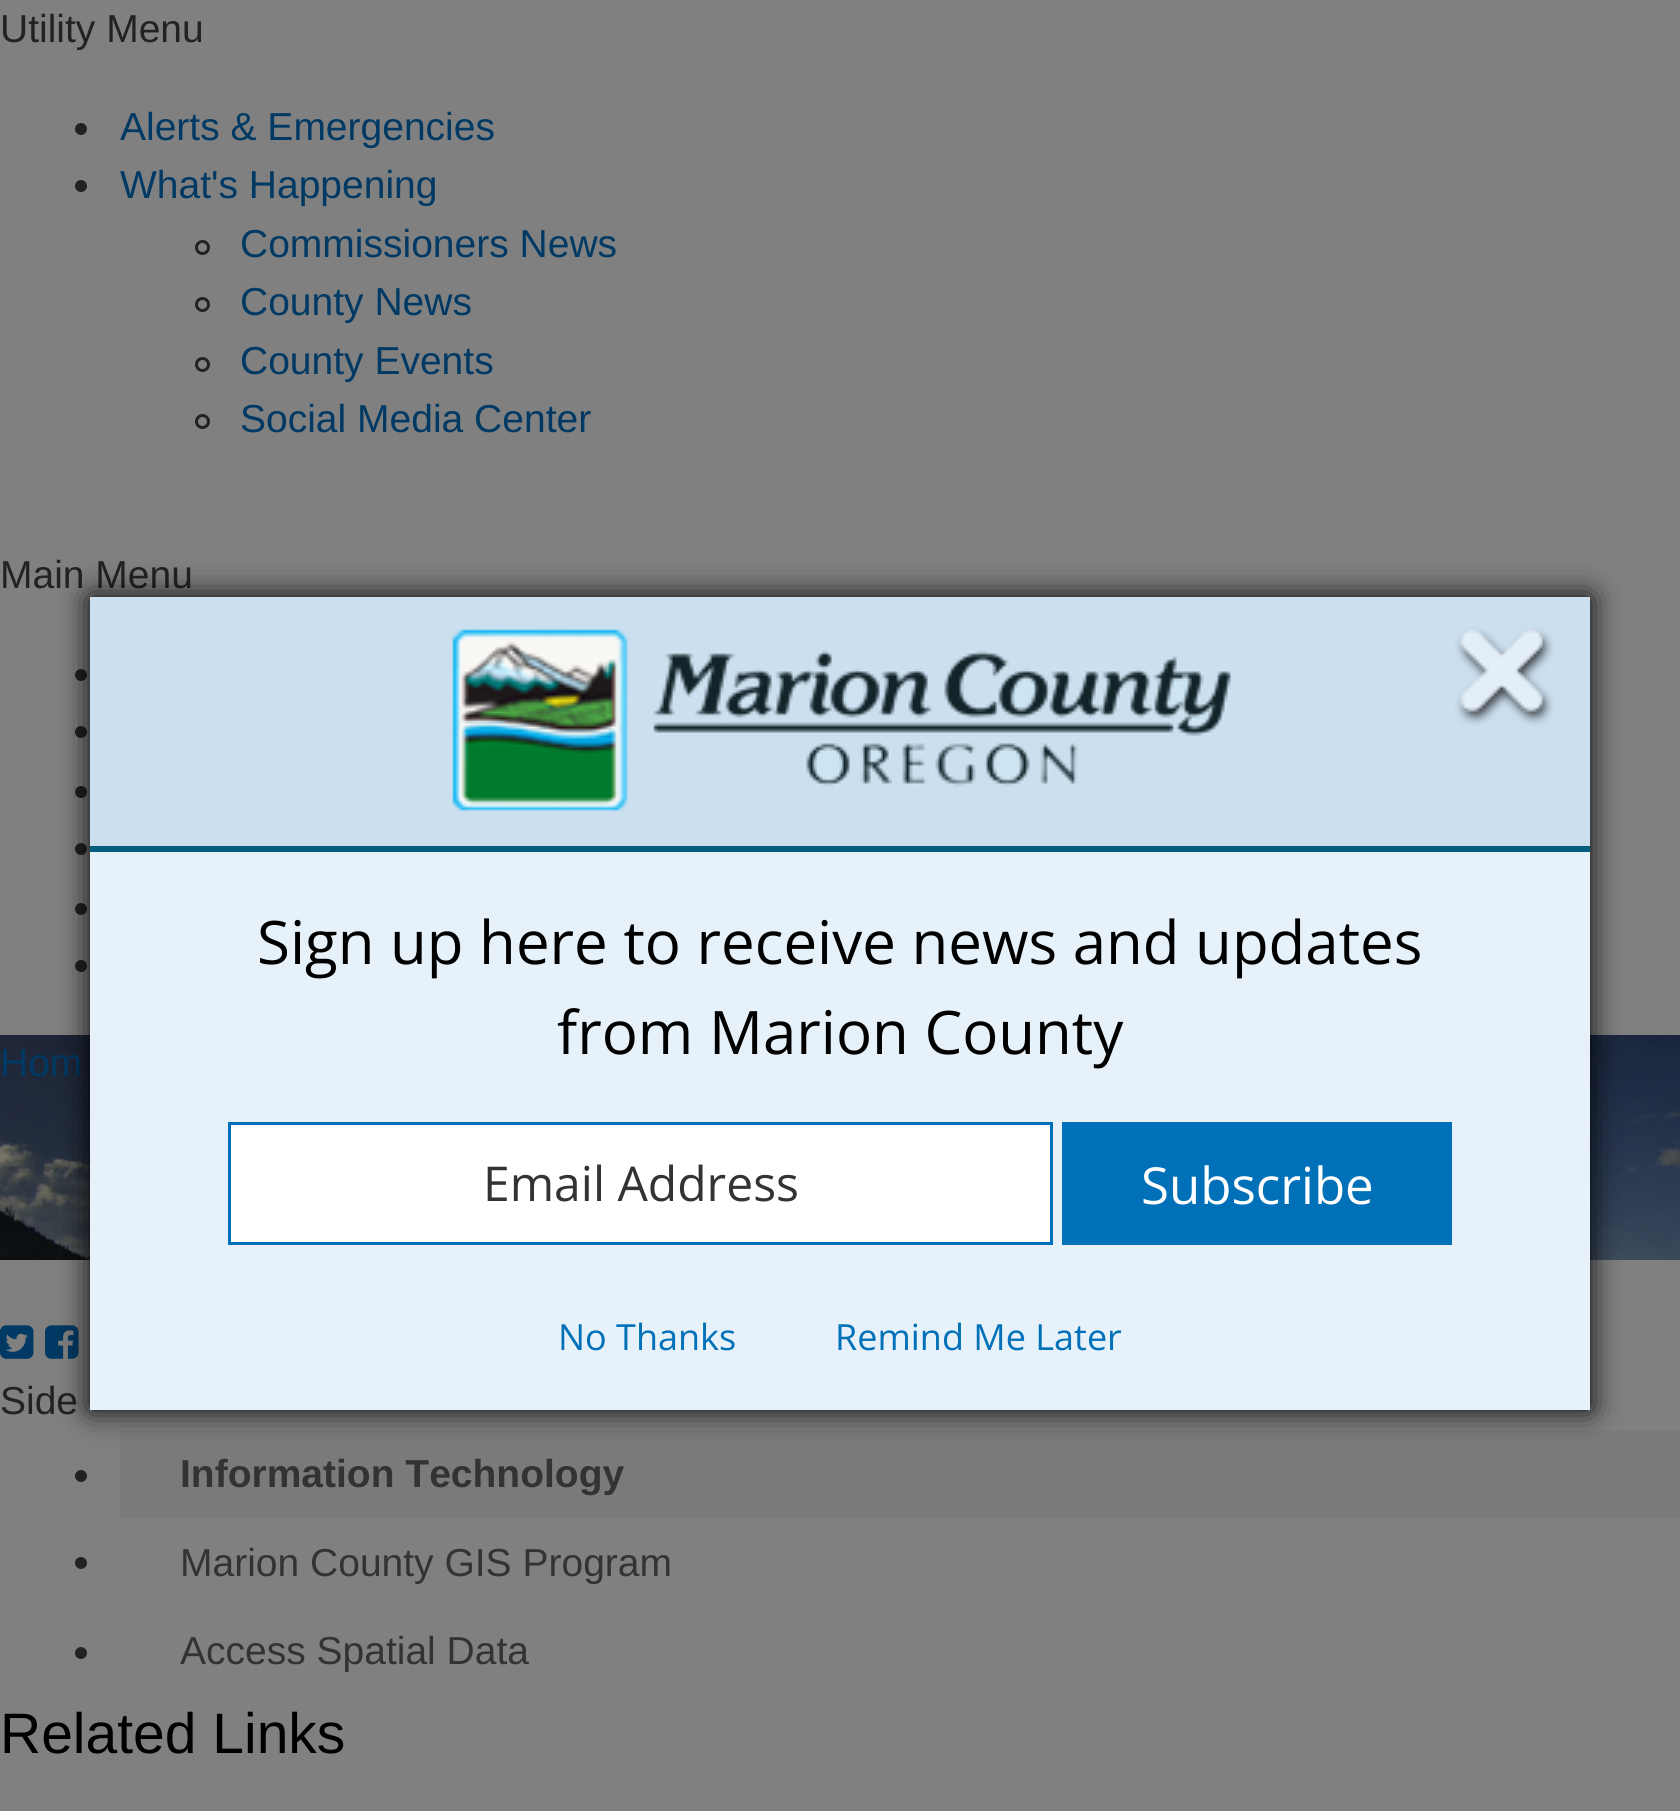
#include <cairo.h>
#include <math.h>
#include <stddef.h>

typedef struct { const char *family; double size; int italic, bold; unsigned color; } style_t;
static cairo_t *ctx;

static void ink(unsigned color) {
    cairo_set_source_rgb(ctx, (color >> 16) / 255.0, (color >> 8 & 255) / 255.0, (color & 255) / 255.0);
}

static void write(double x, double y, const char *s, const style_t *st) {
    cairo_select_font_face(ctx, st->family, st->italic ? CAIRO_FONT_SLANT_ITALIC : CAIRO_FONT_SLANT_NORMAL,
        st->bold ? CAIRO_FONT_WEIGHT_BOLD : CAIRO_FONT_WEIGHT_NORMAL);
    cairo_set_font_size(ctx, st->size);
    ink(st->color);
    cairo_move_to(ctx, x, y);
    cairo_show_text(ctx, s);
}

static void block(double x, double y, double w, double h, unsigned color) {
    ink(color);
    cairo_rectangle(ctx, x, y, w, h);
    cairo_fill(ctx);
}

static void round_path(double x, double y, double w, double h, double r) {
    cairo_new_sub_path(ctx);
    cairo_arc(ctx, x + w - r, y + h - r, r, 0, M_PI / 2);
    cairo_arc(ctx, x + r, y + h - r, r, M_PI / 2, M_PI);
    cairo_arc(ctx, x + r, y + r, r, M_PI, 1.5 * M_PI);
    cairo_arc(ctx, x + w - r, y + r, r, 1.5 * M_PI, 2 * M_PI);
    cairo_close_path(ctx);
}

static void blur_box(double x, double y, double w, double h, double r, double blur, double alpha) {
    cairo_push_group_with_content(ctx, CAIRO_CONTENT_ALPHA);
    cairo_set_operator(ctx, CAIRO_OPERATOR_SOURCE);
    for (int i = 15; i >= -15 && fmin(w, h) + blur * i / 3 > 0; i -= 2) {
        double e = blur * i / 6;
        cairo_set_source_rgba(ctx, 0, 0, 0, alpha * erfc((i - 1) / 8.5) / 2);
        round_path(x - e, y - e, w + 2 * e, h + 2 * e, fmax(0, fmin(r + e + blur * .6, fmin(w, h) / 2 + e)));
        cairo_fill(ctx);
    }
    cairo_pattern_t *soft = cairo_pop_group(ctx);
    cairo_mask(ctx, soft);
    cairo_pattern_destroy(soft);
}

static void paste(const char *path, double x, double y, double w, double h) {
    cairo_surface_t *image = cairo_image_surface_create_from_png(path);
    cairo_save(ctx);
    cairo_set_source_surface(ctx, image, x, y);
    cairo_rectangle(ctx, x, y, w, h);
    cairo_fill(ctx);
    cairo_restore(ctx);
    cairo_surface_destroy(image);
}

static const style_t s1 = {"Liberation Sans", 39, 0, 0, 0x222222};
static const style_t s2 = {"Liberation Sans", 39, 0, 0, 0x003963};
static const style_t s3 = {"Liberation Sans", 39, 0, 1, 0x333333};
static const style_t s4 = {"Liberation Sans", 39, 0, 0, 0x333333};
static const style_t s5 = {"Liberation Sans", 57, 0, 0, 0x000000};
static const style_t s6 = {"Open Sans", 60, 0, 0, 0x000000};
static const style_t s7 = {"Open Sans", 48, 0, 0, 0x333333};
static const style_t s8 = {"Open Sans", 51, 0, 0, 0xffffff};
static const style_t s9 = {"Open Sans", 36, 0, 0, 0x0071b8};

int main(void) {
    cairo_surface_t *surface = cairo_image_surface_create(CAIRO_FORMAT_RGB24, 1680, 1811);
    ctx = cairo_create(surface);
    cairo_font_options_t *options = cairo_font_options_create();
    cairo_font_options_set_hint_metrics(options, CAIRO_HINT_METRICS_OFF);
    cairo_font_options_set_hint_style(options, CAIRO_HINT_STYLE_NONE);
    cairo_set_font_options(ctx, options);
    cairo_set_miter_limit(ctx, 4);
    ink(0x808080);
    cairo_paint(ctx);
    write(0, 42, "Utility Menu", &s1);
    cairo_new_path(ctx);
    cairo_arc(ctx, 81, 129, 6, 0, 2 * M_PI);
    cairo_fill(ctx);
    write(120, 140, "Alerts & Emergencies", &s2);
    ink(0x222222);
    cairo_new_path(ctx);
    cairo_arc(ctx, 81, 186, 6, 0, 2 * M_PI);
    cairo_fill(ctx);
    write(120, 198, "What's Happening", &s2);
    cairo_new_path(ctx);
    cairo_arc(ctx, 202.5, 247.5, 6, 0, 2 * M_PI);
    ink(0x222222);
    cairo_set_line_width(ctx, 3);
    cairo_stroke(ctx);
    write(240, 257, "Commissioners News", &s2);
    cairo_new_path(ctx);
    cairo_arc(ctx, 202.5, 304.5, 6, 0, 2 * M_PI);
    ink(0x222222);
    cairo_stroke(ctx);
    write(240, 315, "County News", &s2);
    cairo_new_path(ctx);
    cairo_arc(ctx, 202.5, 364.5, 6, 0, 2 * M_PI);
    ink(0x222222);
    cairo_stroke(ctx);
    write(240, 374, "County Events", &s2);
    cairo_new_path(ctx);
    cairo_arc(ctx, 202.5, 421.5, 6, 0, 2 * M_PI);
    ink(0x222222);
    cairo_stroke(ctx);
    write(240, 432, "Social Media Center", &s2);
    write(0, 588, "Main Menu", &s1);
    cairo_new_path(ctx);
    cairo_arc(ctx, 81, 675, 6, 0, 2 * M_PI);
    cairo_fill(ctx);
    cairo_arc(ctx, 81, 732, 6, 0, 2 * M_PI);
    cairo_fill(ctx);
    cairo_arc(ctx, 81, 792, 6, 0, 2 * M_PI);
    cairo_fill(ctx);
    cairo_arc(ctx, 81, 849, 6, 0, 2 * M_PI);
    cairo_fill(ctx);
    cairo_arc(ctx, 81, 909, 6, 0, 2 * M_PI);
    cairo_fill(ctx);
    cairo_arc(ctx, 81, 966, 6, 0, 2 * M_PI);
    cairo_fill(ctx);
    paste("pic1.png", 0, 1035, 1680, 225);
    write(0, 1076, "Hom", &s2);
    paste("pic2.png", 0, 1325, 34, 34);
    paste("pic3.png", 45, 1325, 34, 34);
    write(0, 1414, "Side", &s1);
    cairo_new_path(ctx);
    cairo_arc(ctx, 81, 1476, 6, 0, 2 * M_PI);
    cairo_fill(ctx);
    block(120, 1431, 1560, 87, 0x7a7a7a);
    write(180, 1487, "Information Technology", &s3);
    ink(0x222222);
    cairo_new_path(ctx);
    cairo_arc(ctx, 81, 1563, 6, 0, 2 * M_PI);
    cairo_fill(ctx);
    write(180, 1576, "Marion County GIS Program", &s4);
    ink(0x222222);
    cairo_new_path(ctx);
    cairo_arc(ctx, 81, 1653, 6, 0, 2 * M_PI);
    cairo_fill(ctx);
    write(180, 1664, "Access Spatial Data", &s4);
    write(0, 1753, "Related Links", &s5);
    ink(0x000000);
    blur_box(90, 597, 1500, 813, 0, 15, 1);
    block(90, 852, 1500, 558, 0xe6f1f9);
    block(90, 597, 1500, 249, 0xccdfef);
    block(90, 846, 1500, 6, 0x025c7e);
    paste("pic4.png", 452, 629, 779, 182);
    paste("pic5.png", 1455, 627, 99, 99);
    write(257, 964, "Sign up here to receive news and updates", &s6);
    write(557, 1054, "from Marion County", &s6);
    ink(0xffffff);
    cairo_rectangle(ctx, 229.5, 1123.5, 822, 120);
    cairo_fill_preserve(ctx);
    ink(0x0071b8);
    cairo_stroke(ctx);
    write(483, 1201, "Email Address", &s7);
    block(1062, 1122, 390, 123, 0x0071b8);
    write(1141, 1204, "Subscribe", &s8);
    write(558, 1350, "No Thanks", &s9);
    write(835, 1350, "Remind Me Later", &s9);
    cairo_surface_write_to_png(surface, "screenshot.png");
    cairo_font_options_destroy(options);
    cairo_destroy(ctx);
    cairo_surface_destroy(surface);
    return 0;
}
